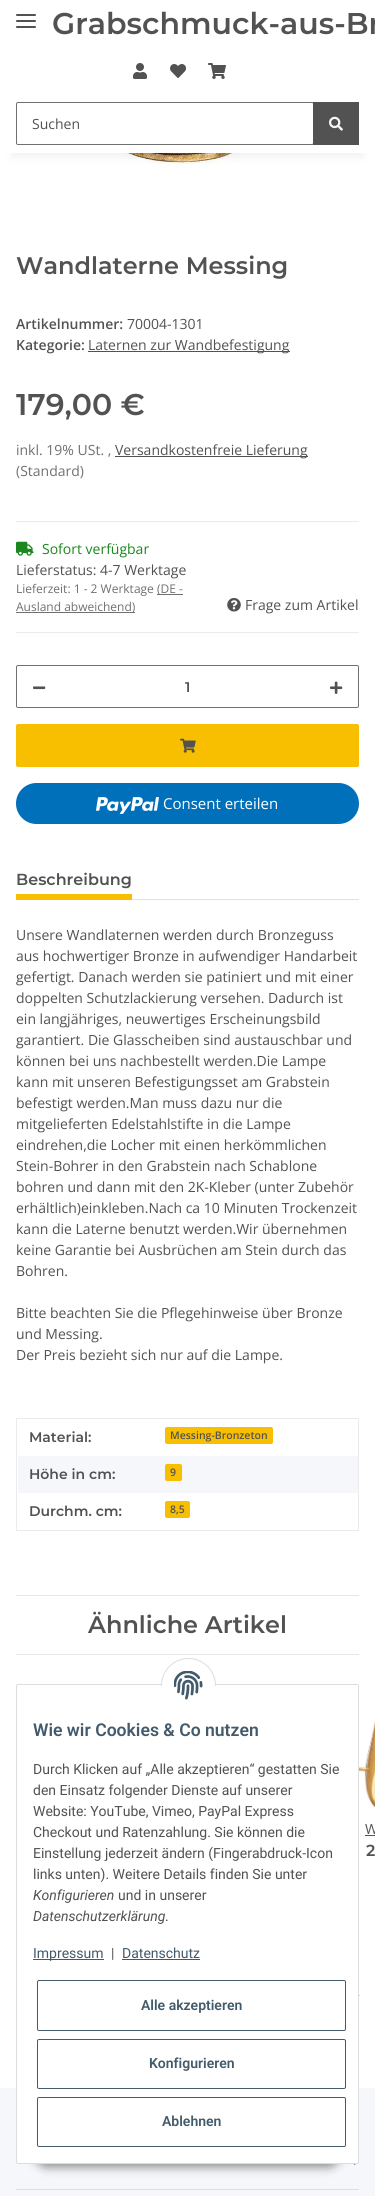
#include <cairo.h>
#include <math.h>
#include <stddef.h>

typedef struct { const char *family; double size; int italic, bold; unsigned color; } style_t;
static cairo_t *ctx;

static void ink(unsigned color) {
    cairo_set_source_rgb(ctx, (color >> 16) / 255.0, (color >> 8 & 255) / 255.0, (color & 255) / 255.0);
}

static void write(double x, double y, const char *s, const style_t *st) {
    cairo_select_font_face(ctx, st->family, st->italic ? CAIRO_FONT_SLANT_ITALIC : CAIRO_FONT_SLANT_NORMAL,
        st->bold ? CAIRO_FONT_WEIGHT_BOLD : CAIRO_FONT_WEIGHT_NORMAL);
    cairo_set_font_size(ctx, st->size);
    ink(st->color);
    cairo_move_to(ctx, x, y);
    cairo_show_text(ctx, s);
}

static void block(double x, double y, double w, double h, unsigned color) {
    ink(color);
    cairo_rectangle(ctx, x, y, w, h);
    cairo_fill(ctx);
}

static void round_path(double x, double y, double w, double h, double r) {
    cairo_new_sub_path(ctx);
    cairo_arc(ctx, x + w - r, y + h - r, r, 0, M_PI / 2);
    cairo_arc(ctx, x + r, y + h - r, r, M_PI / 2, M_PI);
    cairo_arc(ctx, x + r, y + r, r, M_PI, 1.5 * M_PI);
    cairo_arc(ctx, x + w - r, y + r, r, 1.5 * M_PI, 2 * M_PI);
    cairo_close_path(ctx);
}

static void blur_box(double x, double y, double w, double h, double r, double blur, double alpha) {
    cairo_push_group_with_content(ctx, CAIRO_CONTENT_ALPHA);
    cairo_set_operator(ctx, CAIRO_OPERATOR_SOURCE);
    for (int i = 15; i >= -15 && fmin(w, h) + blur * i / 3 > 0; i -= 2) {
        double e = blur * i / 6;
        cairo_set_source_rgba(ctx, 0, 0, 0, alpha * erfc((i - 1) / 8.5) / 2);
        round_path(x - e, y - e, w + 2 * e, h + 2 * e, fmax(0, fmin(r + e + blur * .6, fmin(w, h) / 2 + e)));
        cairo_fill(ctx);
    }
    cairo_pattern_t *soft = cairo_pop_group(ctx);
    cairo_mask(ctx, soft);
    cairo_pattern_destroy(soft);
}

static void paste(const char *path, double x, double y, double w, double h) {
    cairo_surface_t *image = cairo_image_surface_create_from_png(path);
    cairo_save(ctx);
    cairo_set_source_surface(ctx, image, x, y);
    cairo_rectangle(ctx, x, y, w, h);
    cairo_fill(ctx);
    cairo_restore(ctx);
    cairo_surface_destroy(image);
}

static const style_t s1 = {"Montserrat SemiBold", 30, 0, 0, 0x525252};
static const style_t s2 = {"Open Sans", 14, 0, 0, 0x525252};
static const style_t s3 = {"Montserrat SemiBold", 24, 0, 0, 0x525252};
static const style_t s4 = {"Open Sans SemiBold", 14, 0, 0, 0x525252};
static const style_t s5 = {"Open Sans", 14, 0, 0, 0x707070};
static const style_t s6 = {"Open Sans", 14, 0, 0, 0x1c871e};
static const style_t s7 = {"Open Sans", 12, 0, 0, 0x707070};
static const style_t s8 = {"Montserrat SemiBold", 14, 0, 0, 0x525252};
static const style_t s9 = {"Open Sans", 15, 0, 0, 0xffffff};
static const style_t s10 = {"Montserrat SemiBold", 16, 0, 0, 0x525252};
static const style_t s11 = {"Open Sans SemiBold", 10.5, 0, 0, 0x525252};
static const style_t s12 = {"Roboto SemiBold", 17.6, 0, 0, 0x435a6b};
static const style_t s13 = {"Roboto", 14, 0, 0, 0x525252};
static const style_t s14 = {"Roboto", 14, 1, 0, 0x525252};
static const style_t s15 = {"Roboto", 14, 0, 0, 0x435a6b};
static const style_t s16 = {"Roboto SemiBold", 14, 0, 0, 0x435a6b};

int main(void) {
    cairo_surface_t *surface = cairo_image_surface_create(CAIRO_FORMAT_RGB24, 375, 2196);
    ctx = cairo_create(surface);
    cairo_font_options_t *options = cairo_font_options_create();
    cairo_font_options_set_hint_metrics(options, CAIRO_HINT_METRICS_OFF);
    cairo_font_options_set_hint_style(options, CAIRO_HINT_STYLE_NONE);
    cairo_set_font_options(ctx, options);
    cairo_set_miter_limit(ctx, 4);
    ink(0xf5f7fa);
    cairo_paint(ctx);
    block(0, 153, 375, 1935, 0xffffff);
    paste("pic5.png", 67, 153, 227, 15);
    ink(0x000000);
    blur_box(12, 28, 351, 129, 0, 4.5, 0.06);
    block(0, 0, 375, 153, 0xffffff);
    ink(0x525252);
    round_path(16, 20, 20, 2, 1);
    cairo_fill(ctx);
    round_path(16, 14, 20, 2, 1);
    cairo_fill(ctx);
    round_path(16, 26, 20, 2, 1);
    cairo_fill(ctx);
    write(52, 34, "Grabschmuck-aus-Br", &s1);
    paste("pic1.png", 133, 63, 14, 16);
    paste("pic2.png", 170, 64, 16, 14);
    paste("pic3.png", 208, 63, 18, 16);
    round_path(16.5, 102.5, 297, 42, 1.5);
    ink(0x707070);
    cairo_set_line_width(ctx, 1);
    cairo_stroke(ctx);
    write(32, 129, "Suchen", &s2);
    block(313, 102, 46, 43, 0x525252);
    paste("pic4.png", 329, 116, 14, 15);
    write(16, 274, "Wandlaterne Messing", &s3);
    write(16, 329, "Artikelnummer:", &s4);
    write(127, 329, "70004-1301", &s2);
    write(16, 350, "Kategorie:", &s4);
    block(88, 351, 202, 1, 0x525252);
    write(88, 350, "Laternen zur Wandbefestigung", &s2);
    write(16, 415, "179,00 €", &s1);
    write(16, 455, "inkl. 19% USt. ,", &s5);
    block(115, 456, 193, 1, 0x525252);
    write(115, 455, "Versandkostenfreie Lieferung", &s2);
    write(16, 476, "(Standard)", &s5);
    block(16, 521, 343, 1, 0xebebeb);
    block(16, 632, 343, 1, 0xebebeb);
    paste("pic6.png", 16, 541, 18, 15);
    write(42, 554, "Sofort verfügbar", &s6);
    write(16, 575, "Lieferstatus: 4-7 Werktage", &s2);
    write(16, 593, "Lieferzeit: 1 - 2 Werktage", &s7);
    block(157, 594, 26, 1, 0x707070);
    write(157, 593, "(DE -", &s7);
    block(16, 612, 119, 1, 0x707070);
    write(16, 611, "Ausland abweichend)", &s7);
    paste("pic7.png", 227, 598, 14, 14);
    write(245, 610, "Frage zum Artikel", &s2);
    round_path(16.5, 665.5, 342, 42, 1.5);
    ink(0x707070);
    cairo_stroke(ctx);
    paste("pic8.png", 33, 686, 13, 4);
    write(185, 692, "1", &s8);
    paste("pic9.png", 330, 681, 13, 13);
    ink(0xf8bf00);
    round_path(16.5, 724.5, 342, 42, 1.5);
    cairo_fill_preserve(ctx);
    cairo_stroke(ctx);
    paste("pic10.png", 180, 738, 16, 15);
    ink(0x0070ba);
    round_path(16, 783, 343, 41, 20.5);
    cairo_fill(ctx);
    paste("pic11.png", 96, 797, 63, 17);
    write(163, 809, "Consent erteilen", &s9);
    block(132, 899, 227, 1, 0xdee2e6);
    write(16, 885, "Beschreibung", &s10);
    block(16, 894, 116, 6, 0xf8bf00);
    write(16, 940, "Unsere Wandlaternen werden durch Bronzeguss", &s2);
    write(16, 961, "aus hochwertiger Bronze in aufwendiger Handarbeit", &s2);
    write(16, 982, "gefertigt. Danach werden sie patiniert und mit einer", &s2);
    write(16, 1003, "doppelten Schutzlackierung versehen. Dadurch ist", &s2);
    write(16, 1024, "ein langjähriges, neuwertiges Erscheinungsbild", &s2);
    write(16, 1045, "garantiert. Die Glasscheiben sind austauschbar und", &s2);
    write(16, 1066, "können bei uns nachbestellt werden.Die Lampe", &s2);
    write(16, 1087, "kann mit unseren Befestigungsset am Grabstein", &s2);
    write(16, 1108, "befestigt werden.Man muss dazu nur die", &s2);
    write(16, 1129, "mitgelieferten Edelstahlstifte in die Lampe", &s2);
    write(16, 1150, "eindrehen,die Locher mit einen herkömmlichen", &s2);
    write(16, 1171, "Stein-Bohrer in den Grabstein nach Schablone", &s2);
    write(16, 1192, "bohren und dann mit den 2K-Kleber (unter Zubehör", &s2);
    write(16, 1213, "erhältlich)einkleben.Nach ca 10 Minuten Trockenzeit", &s2);
    write(16, 1234, "kann die Laterne benutzt werden.Wir übernehmen", &s2);
    write(16, 1255, "keine Garantie bei Ausbrüchen am Stein durch das", &s2);
    write(16, 1276, "Bohren.", &s2);
    write(16, 1318, "Bitte beachten Sie die Pflegehinweise über Bronze", &s2);
    write(16, 1339, "und Messing.", &s2);
    write(16, 1360, "Der Preis bezieht sich nur auf die Lampe.", &s2);
    block(16, 1418, 343, 1, 0xebebeb);
    block(358, 1455, 1, 76, 0xebebeb);
    block(358, 1418, 1, 38, 0xebebeb);
    block(16, 1530, 343, 1, 0xebebeb);
    block(16, 1455, 1, 76, 0xebebeb);
    block(16, 1418, 1, 38, 0xebebeb);
    write(29, 1442, "Material:", &s8);
    ink(0xf8bf00);
    round_path(165, 1427, 108, 17, 2);
    cairo_fill(ctx);
    write(170, 1439, "Messing-Bronzeton", &s11);
    block(18, 1456, 340, 37, 0xf5f7fa);
    write(29, 1479, "Höhe in cm:", &s8);
    ink(0xf8bf00);
    round_path(165, 1464, 17, 17, 2);
    cairo_fill(ctx);
    write(170, 1476, "9", &s11);
    write(29, 1516, "Durchm. cm:", &s8);
    ink(0xf8bf00);
    round_path(165, 1501, 25, 17, 2);
    cairo_fill(ctx);
    write(170, 1513, "8,5", &s11);
    block(16, 1595, 343, 1, 0xe6e6e6);
    block(16, 1654, 343, 1, 0xe6e6e6);
    write(88, 1633, "Ähnliche Artikel", &s3);
    paste("pic12.png", 359, 1720, 16, 88);
    write(365, 1834, "W", &s2);
    block(365, 1835, 10, 1, 0x525252);
    write(366, 1856, "2", &s10);
    paste("pic13.png", 359, 1995, 1, 1);
    paste("pic15.png", 353, 2164, 3, 1);
    ink(0x000000);
    blur_box(34, 2135, 307, 32, 16, 5, 0.45);
    ink(0xffffff);
    round_path(16.5, 1684.5, 342, 479, 1.5);
    cairo_fill_preserve(ctx);
    ink(0xdddddd);
    cairo_stroke(ctx);
    ink(0xffffff);
    cairo_arc(ctx, 188.5, 1685.5, 27, 0, 2 * M_PI);
    cairo_fill_preserve(ctx);
    ink(0xdddddd);
    cairo_stroke(ctx);
    block(161, 1686, 55, 27, 0xffffff);
    paste("pic14.png", 174, 1671, 29, 29);
    write(33, 1736, "Wie wir Cookies & Co nutzen", &s12);
    write(33, 1774, "Durch Klicken auf „Alle akzeptieren“ gestatten Sie", &s13);
    write(33, 1795, "den Einsatz folgender Dienste auf unserer", &s13);
    write(33, 1816, "Website: YouTube, Vimeo, PayPal Express", &s13);
    write(33, 1837, "Checkout und Ratenzahlung. Sie können die", &s13);
    write(33, 1858, "Einstellung jederzeit ändern (Fingerabdruck-Icon", &s13);
    write(33, 1879, "links unten). Weitere Details finden Sie unter", &s13);
    write(33, 1900, "Konfigurieren", &s14);
    write(118, 1900, "und in unserer", &s13);
    write(33, 1921, "Datenschutzerklärung", &s14);
    write(165, 1921, ".", &s13);
    block(33, 1959, 71, 1, 0x435a6b);
    write(33, 1958, "Impressum", &s15);
    write(111, 1958, "|", &s13);
    write(122, 1958, "Datenschutz", &s15);
    block(122, 1959, 78, 1, 0x435a6b);
    round_path(37.5, 1980.5, 308, 50, 1.5);
    cairo_stroke(ctx);
    write(141, 2010, "Alle akzeptieren", &s16);
    round_path(37.5, 2039.5, 308, 49, 1.5);
    cairo_stroke(ctx);
    write(149, 2068, "Konfigurieren", &s16);
    round_path(37.5, 2097.5, 308, 49, 1.5);
    cairo_stroke(ctx);
    write(162, 2126, "Ablehnen", &s16);
    block(16, 2189, 343, 1, 0xdddee1);
    cairo_surface_write_to_png(surface, "screenshot.png");
    cairo_font_options_destroy(options);
    cairo_destroy(ctx);
    cairo_surface_destroy(surface);
    return 0;
}
